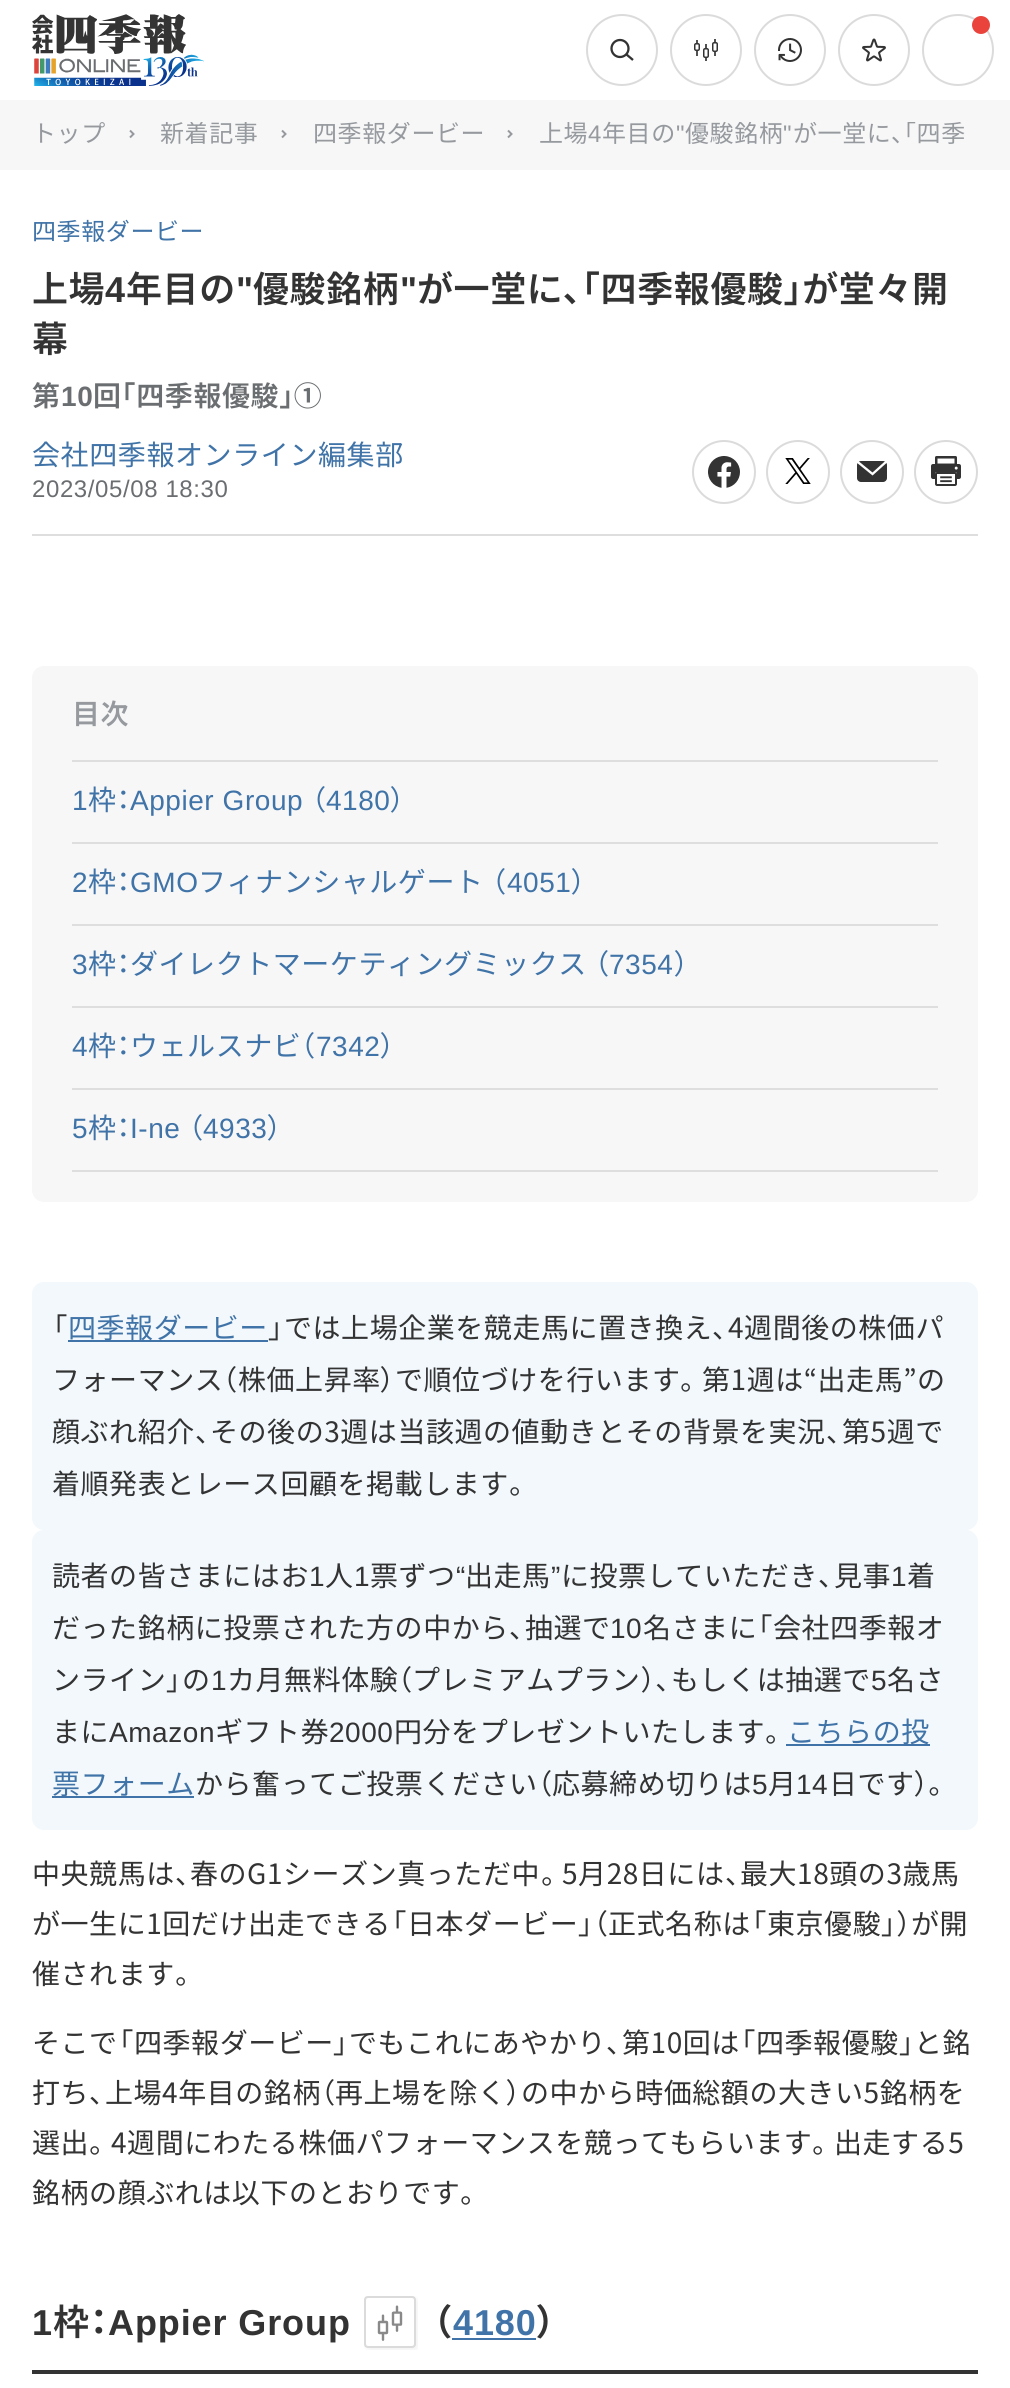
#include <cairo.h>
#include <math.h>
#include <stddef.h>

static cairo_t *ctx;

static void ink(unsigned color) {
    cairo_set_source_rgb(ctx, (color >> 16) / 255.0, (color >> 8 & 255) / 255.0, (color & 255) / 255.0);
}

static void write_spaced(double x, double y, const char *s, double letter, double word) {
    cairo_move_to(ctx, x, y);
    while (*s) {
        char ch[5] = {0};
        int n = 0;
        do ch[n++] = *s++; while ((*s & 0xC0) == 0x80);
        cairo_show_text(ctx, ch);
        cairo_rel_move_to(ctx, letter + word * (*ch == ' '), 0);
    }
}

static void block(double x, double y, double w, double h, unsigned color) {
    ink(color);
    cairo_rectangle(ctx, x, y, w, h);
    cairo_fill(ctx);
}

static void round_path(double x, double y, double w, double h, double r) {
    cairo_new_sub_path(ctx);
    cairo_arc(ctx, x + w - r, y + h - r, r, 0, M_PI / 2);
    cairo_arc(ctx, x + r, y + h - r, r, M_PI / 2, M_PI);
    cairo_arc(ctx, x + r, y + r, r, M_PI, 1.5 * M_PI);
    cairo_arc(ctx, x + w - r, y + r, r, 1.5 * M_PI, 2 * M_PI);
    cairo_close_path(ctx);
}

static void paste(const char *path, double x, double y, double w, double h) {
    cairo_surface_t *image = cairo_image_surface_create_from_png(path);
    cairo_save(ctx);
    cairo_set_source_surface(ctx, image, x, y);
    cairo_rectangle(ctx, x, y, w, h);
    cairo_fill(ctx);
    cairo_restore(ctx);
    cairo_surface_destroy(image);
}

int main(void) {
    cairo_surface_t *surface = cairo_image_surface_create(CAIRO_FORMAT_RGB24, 1010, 2388);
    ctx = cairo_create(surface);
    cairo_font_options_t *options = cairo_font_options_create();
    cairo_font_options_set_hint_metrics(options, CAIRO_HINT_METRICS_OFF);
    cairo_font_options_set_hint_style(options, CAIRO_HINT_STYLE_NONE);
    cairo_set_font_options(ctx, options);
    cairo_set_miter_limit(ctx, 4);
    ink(0xffffff);
    cairo_paint(ctx);
    paste("pic1.png", 32, 14, 172, 72);
    cairo_arc(ctx, 622, 50, 35, 0, 2 * M_PI);
    ink(0xdbdbdb);
    cairo_stroke(ctx);
    cairo_arc(ctx, 620, 48.5, 8.5, 0, 2 * M_PI);
    ink(0x333333);
    cairo_set_line_width(ctx, 2.3);
    cairo_stroke(ctx);
    cairo_new_path(ctx);
    cairo_move_to(ctx, 626.5, 54.5);
    cairo_line_to(ctx, 633, 60);
    cairo_stroke(ctx);
    cairo_arc(ctx, 706, 50, 35, 0, 2 * M_PI);
    ink(0xdbdbdb);
    cairo_set_line_width(ctx, 2);
    cairo_stroke(ctx);
    paste("pic2.png", 694, 39, 24, 22);
    cairo_arc(ctx, 790, 50, 35, 0, 2 * M_PI);
    cairo_stroke(ctx);
    paste("pic3.png", 778, 38, 24, 24);
    cairo_arc(ctx, 874, 50, 35, 0, 2 * M_PI);
    cairo_stroke(ctx);
    paste("pic4.png", 862, 38, 24, 24);
    cairo_arc(ctx, 958, 50, 35, 0, 2 * M_PI);
    cairo_stroke(ctx);
    ink(0xea433c);
    cairo_arc(ctx, 981, 25, 9, 0, 2 * M_PI);
    cairo_fill(ctx);
    block(0, 100, 1010, 70, 0xf7f7f7);
    cairo_select_font_face(ctx, "Noto Sans JP", CAIRO_FONT_SLANT_NORMAL, CAIRO_FONT_WEIGHT_NORMAL);
    cairo_set_font_size(ctx, 24);
    ink(0x969a9f);
    write_spaced(32, 142, "トップ", 0.6, 0);
    cairo_new_path(ctx);
    cairo_move_to(ctx, 130, 130.5);
    cairo_line_to(ctx, 133.5, 134);
    cairo_line_to(ctx, 130, 137.5);
    cairo_stroke(ctx);
    cairo_save(ctx);
    cairo_rectangle(ctx, 32, 122, 946, 28);
    cairo_clip(ctx);
    write_spaced(160, 142, "新着記事", 0.6, 0);
    cairo_restore(ctx);
    cairo_new_path(ctx);
    cairo_move_to(ctx, 282, 130.5);
    cairo_line_to(ctx, 285.5, 134);
    cairo_line_to(ctx, 282, 137.5);
    cairo_stroke(ctx);
    cairo_save(ctx);
    cairo_rectangle(ctx, 32, 122, 946, 28);
    cairo_clip(ctx);
    write_spaced(313, 142, "四季報ダービー", 0.6, 0);
    cairo_restore(ctx);
    write_spaced(539, 142, "上場", 0.6, 0);
    cairo_select_font_face(ctx, "Liberation Sans", CAIRO_FONT_SLANT_NORMAL, CAIRO_FONT_WEIGHT_NORMAL);
    write_spaced(588, 142, "4", 0.6, 0);
    cairo_select_font_face(ctx, "Noto Sans JP", CAIRO_FONT_SLANT_NORMAL, CAIRO_FONT_WEIGHT_NORMAL);
    write_spaced(602, 142, "年目の", 0.6, 0);
    cairo_select_font_face(ctx, "Liberation Sans", CAIRO_FONT_SLANT_NORMAL, CAIRO_FONT_WEIGHT_NORMAL);
    write_spaced(676, 142, "\"", 0.6, 0);
    cairo_save(ctx);
    cairo_rectangle(ctx, 32, 122, 946, 28);
    cairo_clip(ctx);
    cairo_select_font_face(ctx, "Noto Sans JP", CAIRO_FONT_SLANT_NORMAL, CAIRO_FONT_WEIGHT_NORMAL);
    write_spaced(685, 142, "優駿銘柄", 0.6, 0);
    cairo_restore(ctx);
    write_spaced(783, 142, "\"", 0.6, 0);
    cairo_save(ctx);
    cairo_rectangle(ctx, 32, 122, 946, 28);
    cairo_clip(ctx);
    cairo_select_font_face(ctx, "Noto Sans JP", CAIRO_FONT_SLANT_NORMAL, CAIRO_FONT_WEIGHT_NORMAL);
    write_spaced(793, 142, "が一堂に､｢四季", 0.6, 0);
    cairo_restore(ctx);
    cairo_new_path(ctx);
    cairo_move_to(ctx, 508, 130.5);
    cairo_line_to(ctx, 511.5, 134);
    cairo_line_to(ctx, 508, 137.5);
    cairo_stroke(ctx);
    block(32, 534, 946, 2, 0xdedede);
    cairo_select_font_face(ctx, "Noto Sans JP", CAIRO_FONT_SLANT_NORMAL, CAIRO_FONT_WEIGHT_NORMAL);
    ink(0x4073a7);
    write_spaced(32, 240, "四季報ダービー", 0.6, 0);
    cairo_select_font_face(ctx, "Noto Sans JP SemiBold", CAIRO_FONT_SLANT_NORMAL, CAIRO_FONT_WEIGHT_NORMAL);
    cairo_set_font_size(ctx, 36);
    ink(0x333333);
    write_spaced(32, 302, "上場", 0.6, 0);
    cairo_select_font_face(ctx, "Liberation Sans", CAIRO_FONT_SLANT_NORMAL, CAIRO_FONT_WEIGHT_BOLD);
    write_spaced(105, 302, "4", 0.6, 0);
    cairo_select_font_face(ctx, "Noto Sans JP SemiBold", CAIRO_FONT_SLANT_NORMAL, CAIRO_FONT_WEIGHT_NORMAL);
    write_spaced(126, 302, "年目の", 0.6, 0);
    cairo_select_font_face(ctx, "Liberation Sans", CAIRO_FONT_SLANT_NORMAL, CAIRO_FONT_WEIGHT_BOLD);
    write_spaced(236, 302, "\"", 0.6, 0);
    cairo_select_font_face(ctx, "Noto Sans JP SemiBold", CAIRO_FONT_SLANT_NORMAL, CAIRO_FONT_WEIGHT_NORMAL);
    write_spaced(253, 302, "優駿銘柄", 0.6, 0);
    cairo_select_font_face(ctx, "Liberation Sans", CAIRO_FONT_SLANT_NORMAL, CAIRO_FONT_WEIGHT_BOLD);
    write_spaced(400, 302, "\"", 0.6, 0);
    cairo_select_font_face(ctx, "Noto Sans JP SemiBold", CAIRO_FONT_SLANT_NORMAL, CAIRO_FONT_WEIGHT_NORMAL);
    write_spaced(417, 302, "が一堂に､｢四季報優駿｣が堂々開", 0.6, 0);
    write_spaced(32, 352, "幕", 0.6, 0);
    cairo_set_font_size(ctx, 28);
    ink(0x6b6e71);
    write_spaced(32, 406, "第", 0.6, 0);
    cairo_select_font_face(ctx, "Liberation Sans", CAIRO_FONT_SLANT_NORMAL, CAIRO_FONT_WEIGHT_BOLD);
    write_spaced(61, 406, "10", 0.6, 0);
    cairo_select_font_face(ctx, "Noto Sans JP SemiBold", CAIRO_FONT_SLANT_NORMAL, CAIRO_FONT_WEIGHT_NORMAL);
    write_spaced(93, 406, "回｢四季報優駿｣①", 0.6, 0);
    cairo_select_font_face(ctx, "Noto Sans JP", CAIRO_FONT_SLANT_NORMAL, CAIRO_FONT_WEIGHT_NORMAL);
    ink(0x4073a7);
    write_spaced(32, 465, "会社四季報オンライン編集部", 0.6, 0);
    cairo_select_font_face(ctx, "Liberation Sans", CAIRO_FONT_SLANT_NORMAL, CAIRO_FONT_WEIGHT_NORMAL);
    cairo_set_font_size(ctx, 24);
    ink(0x6b6e71);
    write_spaced(32, 497, "2023/05/08 18:30", 0.6, 0);
    cairo_new_path(ctx);
    cairo_arc(ctx, 724, 472, 31, 0, 2 * M_PI);
    ink(0xdbdbdb);
    cairo_stroke(ctx);
    paste("pic5.png", 708, 456, 32, 32);
    cairo_arc(ctx, 798, 472, 31, 0, 2 * M_PI);
    cairo_stroke(ctx);
    paste("pic6.png", 785, 458, 26, 26);
    cairo_arc(ctx, 872, 472, 31, 0, 2 * M_PI);
    cairo_stroke(ctx);
    ink(0x333333);
    round_path(857, 461, 30, 21, 4);
    cairo_fill(ctx);
    cairo_new_path(ctx);
    cairo_move_to(ctx, 856.5, 461);
    cairo_line_to(ctx, 872.5, 474);
    cairo_line_to(ctx, 887, 461);
    ink(0xffffff);
    cairo_set_line_width(ctx, 2.3);
    cairo_stroke(ctx);
    cairo_arc(ctx, 946, 472, 31, 0, 2 * M_PI);
    ink(0xdbdbdb);
    cairo_set_line_width(ctx, 2);
    cairo_stroke(ctx);
    paste("pic7.png", 931, 456, 30, 30);
    ink(0xf7f7f7);
    round_path(32, 666, 946, 536, 12);
    cairo_fill(ctx);
    block(72, 760, 866, 2, 0xdedede);
    cairo_select_font_face(ctx, "Noto Sans JP SemiBold", CAIRO_FONT_SLANT_NORMAL, CAIRO_FONT_WEIGHT_NORMAL);
    cairo_set_font_size(ctx, 28);
    ink(0x969a9f);
    write_spaced(72, 724, "目次", 0.55, 0);
    block(72, 842, 866, 2, 0xdedede);
    cairo_select_font_face(ctx, "Liberation Sans", CAIRO_FONT_SLANT_NORMAL, CAIRO_FONT_WEIGHT_NORMAL);
    ink(0x4073a7);
    write_spaced(72, 810, "1", 0.55, 0);
    cairo_select_font_face(ctx, "Noto Sans JP", CAIRO_FONT_SLANT_NORMAL, CAIRO_FONT_WEIGHT_NORMAL);
    write_spaced(88, 810, "枠", 0.55, 0);
    cairo_select_font_face(ctx, "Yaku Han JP", CAIRO_FONT_SLANT_NORMAL, CAIRO_FONT_WEIGHT_NORMAL);
    write_spaced(117, 810, "：", 0.55, 0);
    cairo_select_font_face(ctx, "Liberation Sans", CAIRO_FONT_SLANT_NORMAL, CAIRO_FONT_WEIGHT_NORMAL);
    write_spaced(130, 810, "Appier Group", 0.55, 0);
    cairo_select_font_face(ctx, "Yaku Han JP", CAIRO_FONT_SLANT_NORMAL, CAIRO_FONT_WEIGHT_NORMAL);
    write_spaced(312, 810, "（", 0.55, 0);
    cairo_select_font_face(ctx, "Liberation Sans", CAIRO_FONT_SLANT_NORMAL, CAIRO_FONT_WEIGHT_NORMAL);
    write_spaced(326, 810, "4180", 0.55, 0);
    cairo_select_font_face(ctx, "Yaku Han JP", CAIRO_FONT_SLANT_NORMAL, CAIRO_FONT_WEIGHT_NORMAL);
    write_spaced(390, 810, "）", 0.55, 0);
    block(72, 924, 866, 2, 0xdedede);
    cairo_select_font_face(ctx, "Liberation Sans", CAIRO_FONT_SLANT_NORMAL, CAIRO_FONT_WEIGHT_NORMAL);
    ink(0x4073a7);
    write_spaced(72, 892, "2", 0.55, 0);
    cairo_select_font_face(ctx, "Noto Sans JP", CAIRO_FONT_SLANT_NORMAL, CAIRO_FONT_WEIGHT_NORMAL);
    write_spaced(88, 892, "枠", 0.55, 0);
    cairo_select_font_face(ctx, "Yaku Han JP", CAIRO_FONT_SLANT_NORMAL, CAIRO_FONT_WEIGHT_NORMAL);
    write_spaced(117, 892, "：", 0.55, 0);
    cairo_select_font_face(ctx, "Liberation Sans", CAIRO_FONT_SLANT_NORMAL, CAIRO_FONT_WEIGHT_NORMAL);
    write_spaced(130, 892, "GMO", 0.55, 0);
    cairo_select_font_face(ctx, "Noto Sans JP", CAIRO_FONT_SLANT_NORMAL, CAIRO_FONT_WEIGHT_NORMAL);
    write_spaced(198, 892, "フィナンシャルゲート", 0.55, 0);
    cairo_select_font_face(ctx, "Yaku Han JP", CAIRO_FONT_SLANT_NORMAL, CAIRO_FONT_WEIGHT_NORMAL);
    write_spaced(492, 892, "（", 0.55, 0);
    cairo_select_font_face(ctx, "Liberation Sans", CAIRO_FONT_SLANT_NORMAL, CAIRO_FONT_WEIGHT_NORMAL);
    write_spaced(507, 892, "4051", 0.55, 0);
    cairo_select_font_face(ctx, "Yaku Han JP", CAIRO_FONT_SLANT_NORMAL, CAIRO_FONT_WEIGHT_NORMAL);
    write_spaced(571, 892, "）", 0.55, 0);
    block(72, 1006, 866, 2, 0xdedede);
    cairo_select_font_face(ctx, "Liberation Sans", CAIRO_FONT_SLANT_NORMAL, CAIRO_FONT_WEIGHT_NORMAL);
    ink(0x4073a7);
    write_spaced(72, 974, "3", 0.55, 0);
    cairo_select_font_face(ctx, "Noto Sans JP", CAIRO_FONT_SLANT_NORMAL, CAIRO_FONT_WEIGHT_NORMAL);
    write_spaced(88, 974, "枠", 0.55, 0);
    cairo_select_font_face(ctx, "Yaku Han JP", CAIRO_FONT_SLANT_NORMAL, CAIRO_FONT_WEIGHT_NORMAL);
    write_spaced(117, 974, "：", 0.55, 0);
    cairo_select_font_face(ctx, "Noto Sans JP", CAIRO_FONT_SLANT_NORMAL, CAIRO_FONT_WEIGHT_NORMAL);
    write_spaced(130, 974, "ダイレクトマーケティングミックス", 0.55, 0);
    cairo_select_font_face(ctx, "Yaku Han JP", CAIRO_FONT_SLANT_NORMAL, CAIRO_FONT_WEIGHT_NORMAL);
    write_spaced(595, 974, "（", 0.55, 0);
    cairo_select_font_face(ctx, "Liberation Sans", CAIRO_FONT_SLANT_NORMAL, CAIRO_FONT_WEIGHT_NORMAL);
    write_spaced(609, 974, "7354", 0.55, 0);
    cairo_select_font_face(ctx, "Yaku Han JP", CAIRO_FONT_SLANT_NORMAL, CAIRO_FONT_WEIGHT_NORMAL);
    write_spaced(674, 974, "）", 0.55, 0);
    block(72, 1088, 866, 2, 0xdedede);
    cairo_select_font_face(ctx, "Liberation Sans", CAIRO_FONT_SLANT_NORMAL, CAIRO_FONT_WEIGHT_NORMAL);
    ink(0x4073a7);
    write_spaced(72, 1056, "4", 0.55, 0);
    cairo_select_font_face(ctx, "Noto Sans JP", CAIRO_FONT_SLANT_NORMAL, CAIRO_FONT_WEIGHT_NORMAL);
    write_spaced(88, 1056, "枠", 0.55, 0);
    cairo_select_font_face(ctx, "Yaku Han JP", CAIRO_FONT_SLANT_NORMAL, CAIRO_FONT_WEIGHT_NORMAL);
    write_spaced(117, 1056, "：", 0.55, 0);
    cairo_select_font_face(ctx, "Noto Sans JP", CAIRO_FONT_SLANT_NORMAL, CAIRO_FONT_WEIGHT_NORMAL);
    write_spaced(130, 1056, "ウェルスナビ", 0.55, 0);
    cairo_select_font_face(ctx, "Yaku Han JP", CAIRO_FONT_SLANT_NORMAL, CAIRO_FONT_WEIGHT_NORMAL);
    write_spaced(301, 1056, "（", 0.55, 0);
    cairo_select_font_face(ctx, "Liberation Sans", CAIRO_FONT_SLANT_NORMAL, CAIRO_FONT_WEIGHT_NORMAL);
    write_spaced(316, 1056, "7342", 0.55, 0);
    cairo_select_font_face(ctx, "Yaku Han JP", CAIRO_FONT_SLANT_NORMAL, CAIRO_FONT_WEIGHT_NORMAL);
    write_spaced(380, 1056, "）", 0.55, 0);
    block(72, 1170, 866, 2, 0xdedede);
    cairo_select_font_face(ctx, "Liberation Sans", CAIRO_FONT_SLANT_NORMAL, CAIRO_FONT_WEIGHT_NORMAL);
    ink(0x4073a7);
    write_spaced(72, 1138, "5", 0.55, 0);
    cairo_select_font_face(ctx, "Noto Sans JP", CAIRO_FONT_SLANT_NORMAL, CAIRO_FONT_WEIGHT_NORMAL);
    write_spaced(88, 1138, "枠", 0.55, 0);
    cairo_select_font_face(ctx, "Yaku Han JP", CAIRO_FONT_SLANT_NORMAL, CAIRO_FONT_WEIGHT_NORMAL);
    write_spaced(117, 1138, "：", 0.55, 0);
    cairo_select_font_face(ctx, "Liberation Sans", CAIRO_FONT_SLANT_NORMAL, CAIRO_FONT_WEIGHT_NORMAL);
    write_spaced(130, 1138, "I-ne", 0.55, 0);
    cairo_select_font_face(ctx, "Yaku Han JP", CAIRO_FONT_SLANT_NORMAL, CAIRO_FONT_WEIGHT_NORMAL);
    write_spaced(189, 1138, "（", 0.55, 0);
    cairo_select_font_face(ctx, "Liberation Sans", CAIRO_FONT_SLANT_NORMAL, CAIRO_FONT_WEIGHT_NORMAL);
    write_spaced(203, 1138, "4933", 0.55, 0);
    cairo_select_font_face(ctx, "Yaku Han JP", CAIRO_FONT_SLANT_NORMAL, CAIRO_FONT_WEIGHT_NORMAL);
    write_spaced(267, 1138, "）", 0.55, 0);
    ink(0xf2f8fc);
    round_path(32, 1282, 946, 248, 12);
    cairo_fill(ctx);
    ink(0x333333);
    write_spaced(52, 1338, "「", 0.55, 0);
    block(68, 1340, 200, 2, 0x4073a7);
    cairo_select_font_face(ctx, "Noto Sans JP", CAIRO_FONT_SLANT_NORMAL, CAIRO_FONT_WEIGHT_NORMAL);
    write_spaced(68, 1338, "四季報ダービー", 0.55, 0);
    cairo_select_font_face(ctx, "Yaku Han JP", CAIRO_FONT_SLANT_NORMAL, CAIRO_FONT_WEIGHT_NORMAL);
    ink(0x333333);
    write_spaced(268, 1338, "」", 0.55, 0);
    cairo_select_font_face(ctx, "Noto Sans JP", CAIRO_FONT_SLANT_NORMAL, CAIRO_FONT_WEIGHT_NORMAL);
    write_spaced(284, 1338, "では上場企業を競走馬に置き換え", 0.55, 0);
    cairo_select_font_face(ctx, "Yaku Han JP", CAIRO_FONT_SLANT_NORMAL, CAIRO_FONT_WEIGHT_NORMAL);
    write_spaced(712, 1338, "、", 0.55, 0);
    cairo_select_font_face(ctx, "Noto Sans JP", CAIRO_FONT_SLANT_NORMAL, CAIRO_FONT_WEIGHT_NORMAL);
    write_spaced(728, 1338, "4週間後の株価パ", 0.55, 0);
    write_spaced(52, 1390, "フォーマンス", 0.55, 0);
    cairo_select_font_face(ctx, "Yaku Han JP", CAIRO_FONT_SLANT_NORMAL, CAIRO_FONT_WEIGHT_NORMAL);
    write_spaced(223, 1390, "（", 0.55, 0);
    cairo_select_font_face(ctx, "Noto Sans JP", CAIRO_FONT_SLANT_NORMAL, CAIRO_FONT_WEIGHT_NORMAL);
    write_spaced(238, 1390, "株価上昇率", 0.55, 0);
    cairo_select_font_face(ctx, "Yaku Han JP", CAIRO_FONT_SLANT_NORMAL, CAIRO_FONT_WEIGHT_NORMAL);
    write_spaced(380, 1390, "）", 0.55, 0);
    cairo_select_font_face(ctx, "Noto Sans JP", CAIRO_FONT_SLANT_NORMAL, CAIRO_FONT_WEIGHT_NORMAL);
    write_spaced(395, 1390, "で順位づけを行います", 0.55, 0);
    cairo_select_font_face(ctx, "Yaku Han JP", CAIRO_FONT_SLANT_NORMAL, CAIRO_FONT_WEIGHT_NORMAL);
    write_spaced(680, 1390, "。", 0.55, 0);
    cairo_select_font_face(ctx, "Noto Sans JP", CAIRO_FONT_SLANT_NORMAL, CAIRO_FONT_WEIGHT_NORMAL);
    write_spaced(702, 1390, "第1週は“出走馬”の", 0.55, 0);
    write_spaced(52, 1442, "顔ぶれ紹介", 0.55, 0);
    cairo_select_font_face(ctx, "Yaku Han JP", CAIRO_FONT_SLANT_NORMAL, CAIRO_FONT_WEIGHT_NORMAL);
    write_spaced(195, 1442, "、", 0.55, 0);
    cairo_select_font_face(ctx, "Noto Sans JP", CAIRO_FONT_SLANT_NORMAL, CAIRO_FONT_WEIGHT_NORMAL);
    write_spaced(210, 1442, "その後の3週は当該週の値動きとその背景を実況", 0.55, 0);
    cairo_select_font_face(ctx, "Yaku Han JP", CAIRO_FONT_SLANT_NORMAL, CAIRO_FONT_WEIGHT_NORMAL);
    write_spaced(826, 1442, "、", 0.55, 0);
    cairo_select_font_face(ctx, "Noto Sans JP", CAIRO_FONT_SLANT_NORMAL, CAIRO_FONT_WEIGHT_NORMAL);
    write_spaced(842, 1442, "第5週で", 0.55, 0);
    write_spaced(52, 1494, "着順発表とレース回顧を掲載します", 0.55, 0);
    cairo_select_font_face(ctx, "Yaku Han JP", CAIRO_FONT_SLANT_NORMAL, CAIRO_FONT_WEIGHT_NORMAL);
    write_spaced(509, 1494, "。", 0.55, 0);
    ink(0xf2f8fc);
    round_path(32, 1530, 946, 300, 12);
    cairo_fill(ctx);
    cairo_select_font_face(ctx, "Noto Sans JP", CAIRO_FONT_SLANT_NORMAL, CAIRO_FONT_WEIGHT_NORMAL);
    ink(0x333333);
    write_spaced(52, 1586, "読者の皆さまにはお", 0.55, 0);
    cairo_select_font_face(ctx, "Liberation Sans", CAIRO_FONT_SLANT_NORMAL, CAIRO_FONT_WEIGHT_NORMAL);
    write_spaced(309, 1586, "1", 0.55, 0);
    cairo_select_font_face(ctx, "Noto Sans JP", CAIRO_FONT_SLANT_NORMAL, CAIRO_FONT_WEIGHT_NORMAL);
    write_spaced(325, 1586, "人", 0.55, 0);
    cairo_select_font_face(ctx, "Liberation Sans", CAIRO_FONT_SLANT_NORMAL, CAIRO_FONT_WEIGHT_NORMAL);
    write_spaced(354, 1586, "1", 0.55, 0);
    cairo_select_font_face(ctx, "Noto Sans JP", CAIRO_FONT_SLANT_NORMAL, CAIRO_FONT_WEIGHT_NORMAL);
    write_spaced(370, 1586, "票ずつ", 0.55, 0);
    cairo_select_font_face(ctx, "Liberation Sans", CAIRO_FONT_SLANT_NORMAL, CAIRO_FONT_WEIGHT_NORMAL);
    write_spaced(456, 1586, "“", 0.55, 0);
    cairo_select_font_face(ctx, "Noto Sans JP", CAIRO_FONT_SLANT_NORMAL, CAIRO_FONT_WEIGHT_NORMAL);
    write_spaced(465, 1586, "出走馬", 0.55, 0);
    cairo_select_font_face(ctx, "Liberation Sans", CAIRO_FONT_SLANT_NORMAL, CAIRO_FONT_WEIGHT_NORMAL);
    write_spaced(551, 1586, "”", 0.55, 0);
    cairo_select_font_face(ctx, "Noto Sans JP", CAIRO_FONT_SLANT_NORMAL, CAIRO_FONT_WEIGHT_NORMAL);
    write_spaced(561, 1586, "に投票していただき", 0.55, 0);
    cairo_select_font_face(ctx, "Yaku Han JP", CAIRO_FONT_SLANT_NORMAL, CAIRO_FONT_WEIGHT_NORMAL);
    write_spaced(818, 1586, "、", 0.55, 0);
    cairo_select_font_face(ctx, "Noto Sans JP", CAIRO_FONT_SLANT_NORMAL, CAIRO_FONT_WEIGHT_NORMAL);
    write_spaced(834, 1586, "見事", 0.55, 0);
    cairo_select_font_face(ctx, "Liberation Sans", CAIRO_FONT_SLANT_NORMAL, CAIRO_FONT_WEIGHT_NORMAL);
    write_spaced(891, 1586, "1", 0.55, 0);
    cairo_select_font_face(ctx, "Noto Sans JP", CAIRO_FONT_SLANT_NORMAL, CAIRO_FONT_WEIGHT_NORMAL);
    write_spaced(907, 1586, "着", 0.55, 0);
    write_spaced(52, 1638, "だった銘柄に投票された方の中から", 0.55, 0);
    cairo_select_font_face(ctx, "Yaku Han JP", CAIRO_FONT_SLANT_NORMAL, CAIRO_FONT_WEIGHT_NORMAL);
    write_spaced(509, 1638, "、", 0.55, 0);
    cairo_select_font_face(ctx, "Noto Sans JP", CAIRO_FONT_SLANT_NORMAL, CAIRO_FONT_WEIGHT_NORMAL);
    write_spaced(525, 1638, "抽選で", 0.55, 0);
    cairo_select_font_face(ctx, "Liberation Sans", CAIRO_FONT_SLANT_NORMAL, CAIRO_FONT_WEIGHT_NORMAL);
    write_spaced(610, 1638, "10", 0.55, 0);
    cairo_select_font_face(ctx, "Noto Sans JP", CAIRO_FONT_SLANT_NORMAL, CAIRO_FONT_WEIGHT_NORMAL);
    write_spaced(643, 1638, "名さまに", 0.55, 0);
    cairo_select_font_face(ctx, "Yaku Han JP", CAIRO_FONT_SLANT_NORMAL, CAIRO_FONT_WEIGHT_NORMAL);
    write_spaced(757, 1638, "「", 0.55, 0);
    cairo_select_font_face(ctx, "Noto Sans JP", CAIRO_FONT_SLANT_NORMAL, CAIRO_FONT_WEIGHT_NORMAL);
    write_spaced(773, 1638, "会社四季報オ", 0.55, 0);
    write_spaced(52, 1690, "ンライン", 0.55, 0);
    cairo_select_font_face(ctx, "Yaku Han JP", CAIRO_FONT_SLANT_NORMAL, CAIRO_FONT_WEIGHT_NORMAL);
    write_spaced(166, 1690, "」", 0.55, 0);
    cairo_select_font_face(ctx, "Noto Sans JP", CAIRO_FONT_SLANT_NORMAL, CAIRO_FONT_WEIGHT_NORMAL);
    write_spaced(182, 1690, "の", 0.55, 0);
    cairo_select_font_face(ctx, "Liberation Sans", CAIRO_FONT_SLANT_NORMAL, CAIRO_FONT_WEIGHT_NORMAL);
    write_spaced(211, 1690, "1", 0.55, 0);
    cairo_select_font_face(ctx, "Noto Sans JP", CAIRO_FONT_SLANT_NORMAL, CAIRO_FONT_WEIGHT_NORMAL);
    write_spaced(227, 1690, "カ月無料体験", 0.55, 0);
    cairo_select_font_face(ctx, "Yaku Han JP", CAIRO_FONT_SLANT_NORMAL, CAIRO_FONT_WEIGHT_NORMAL);
    write_spaced(398, 1690, "（", 0.55, 0);
    cairo_select_font_face(ctx, "Noto Sans JP", CAIRO_FONT_SLANT_NORMAL, CAIRO_FONT_WEIGHT_NORMAL);
    write_spaced(412, 1690, "プレミアムプラン", 0.55, 0);
    cairo_select_font_face(ctx, "Yaku Han JP", CAIRO_FONT_SLANT_NORMAL, CAIRO_FONT_WEIGHT_NORMAL);
    write_spaced(641, 1690, "）、", 0.55, 0);
    cairo_select_font_face(ctx, "Noto Sans JP", CAIRO_FONT_SLANT_NORMAL, CAIRO_FONT_WEIGHT_NORMAL);
    write_spaced(671, 1690, "もしくは抽選で", 0.55, 0);
    cairo_select_font_face(ctx, "Liberation Sans", CAIRO_FONT_SLANT_NORMAL, CAIRO_FONT_WEIGHT_NORMAL);
    write_spaced(871, 1690, "5", 0.55, 0);
    cairo_select_font_face(ctx, "Noto Sans JP", CAIRO_FONT_SLANT_NORMAL, CAIRO_FONT_WEIGHT_NORMAL);
    write_spaced(887, 1690, "名さ", 0.55, 0);
    write_spaced(52, 1742, "まに", 0.55, 0);
    cairo_select_font_face(ctx, "Liberation Sans", CAIRO_FONT_SLANT_NORMAL, CAIRO_FONT_WEIGHT_NORMAL);
    write_spaced(109, 1742, "Amazon", 0.55, 0);
    cairo_select_font_face(ctx, "Noto Sans JP", CAIRO_FONT_SLANT_NORMAL, CAIRO_FONT_WEIGHT_NORMAL);
    write_spaced(215, 1742, "ギフト券", 0.55, 0);
    cairo_select_font_face(ctx, "Liberation Sans", CAIRO_FONT_SLANT_NORMAL, CAIRO_FONT_WEIGHT_NORMAL);
    write_spaced(329, 1742, "2000", 0.55, 0);
    cairo_select_font_face(ctx, "Noto Sans JP", CAIRO_FONT_SLANT_NORMAL, CAIRO_FONT_WEIGHT_NORMAL);
    write_spaced(394, 1742, "円分をプレゼントいたします", 0.55, 0);
    cairo_select_font_face(ctx, "Yaku Han JP", CAIRO_FONT_SLANT_NORMAL, CAIRO_FONT_WEIGHT_NORMAL);
    write_spaced(765, 1742, "。", 0.55, 0);
    block(786, 1744, 144, 2, 0x4073a7);
    cairo_select_font_face(ctx, "Noto Sans JP", CAIRO_FONT_SLANT_NORMAL, CAIRO_FONT_WEIGHT_NORMAL);
    write_spaced(787, 1742, "こちらの投", 0.55, 0);
    block(52, 1796, 142, 2, 0x4073a7);
    write_spaced(52, 1794, "票フォーム", 0.55, 0);
    ink(0x333333);
    write_spaced(195, 1794, "から奮ってご投票ください", 0.55, 0);
    cairo_select_font_face(ctx, "Yaku Han JP", CAIRO_FONT_SLANT_NORMAL, CAIRO_FONT_WEIGHT_NORMAL);
    write_spaced(538, 1794, "（", 0.55, 0);
    cairo_select_font_face(ctx, "Noto Sans JP", CAIRO_FONT_SLANT_NORMAL, CAIRO_FONT_WEIGHT_NORMAL);
    write_spaced(552, 1794, "応募締め切りは", 0.55, 0);
    cairo_select_font_face(ctx, "Liberation Sans", CAIRO_FONT_SLANT_NORMAL, CAIRO_FONT_WEIGHT_NORMAL);
    write_spaced(752, 1794, "5", 0.55, 0);
    cairo_select_font_face(ctx, "Noto Sans JP", CAIRO_FONT_SLANT_NORMAL, CAIRO_FONT_WEIGHT_NORMAL);
    write_spaced(768, 1794, "月", 0.55, 0);
    cairo_select_font_face(ctx, "Liberation Sans", CAIRO_FONT_SLANT_NORMAL, CAIRO_FONT_WEIGHT_NORMAL);
    write_spaced(796, 1794, "14", 0.55, 0);
    cairo_select_font_face(ctx, "Noto Sans JP", CAIRO_FONT_SLANT_NORMAL, CAIRO_FONT_WEIGHT_NORMAL);
    write_spaced(829, 1794, "日です", 0.55, 0);
    cairo_select_font_face(ctx, "Yaku Han JP", CAIRO_FONT_SLANT_NORMAL, CAIRO_FONT_WEIGHT_NORMAL);
    write_spaced(914, 1794, "）。", 0.55, 0);
    cairo_select_font_face(ctx, "Noto Sans JP", CAIRO_FONT_SLANT_NORMAL, CAIRO_FONT_WEIGHT_NORMAL);
    write_spaced(32, 1884, "中央競馬は", 0.55, 0);
    cairo_select_font_face(ctx, "Yaku Han JP", CAIRO_FONT_SLANT_NORMAL, CAIRO_FONT_WEIGHT_NORMAL);
    write_spaced(175, 1884, "、", 0.55, 0);
    cairo_select_font_face(ctx, "Noto Sans JP", CAIRO_FONT_SLANT_NORMAL, CAIRO_FONT_WEIGHT_NORMAL);
    write_spaced(190, 1884, "春のG1シーズン真っただ中", 0.55, 0);
    cairo_select_font_face(ctx, "Yaku Han JP", CAIRO_FONT_SLANT_NORMAL, CAIRO_FONT_WEIGHT_NORMAL);
    write_spaced(541, 1884, "。", 0.55, 0);
    cairo_select_font_face(ctx, "Noto Sans JP", CAIRO_FONT_SLANT_NORMAL, CAIRO_FONT_WEIGHT_NORMAL);
    write_spaced(562, 1884, "5月28日には", 0.55, 0);
    cairo_select_font_face(ctx, "Yaku Han JP", CAIRO_FONT_SLANT_NORMAL, CAIRO_FONT_WEIGHT_NORMAL);
    write_spaced(725, 1884, "、", 0.55, 0);
    cairo_select_font_face(ctx, "Noto Sans JP", CAIRO_FONT_SLANT_NORMAL, CAIRO_FONT_WEIGHT_NORMAL);
    write_spaced(740, 1884, "最大18頭の3歳馬", 0.55, 0);
    write_spaced(32, 1934, "が一生に1回だけ出走できる", 0.55, 0);
    cairo_select_font_face(ctx, "Yaku Han JP", CAIRO_FONT_SLANT_NORMAL, CAIRO_FONT_WEIGHT_NORMAL);
    write_spaced(391, 1934, "「", 0.55, 0);
    cairo_select_font_face(ctx, "Noto Sans JP", CAIRO_FONT_SLANT_NORMAL, CAIRO_FONT_WEIGHT_NORMAL);
    write_spaced(407, 1934, "日本ダービー", 0.55, 0);
    cairo_select_font_face(ctx, "Yaku Han JP", CAIRO_FONT_SLANT_NORMAL, CAIRO_FONT_WEIGHT_NORMAL);
    write_spaced(578, 1934, "」（", 0.55, 0);
    cairo_select_font_face(ctx, "Noto Sans JP", CAIRO_FONT_SLANT_NORMAL, CAIRO_FONT_WEIGHT_NORMAL);
    write_spaced(608, 1934, "正式名称は", 0.55, 0);
    cairo_select_font_face(ctx, "Yaku Han JP", CAIRO_FONT_SLANT_NORMAL, CAIRO_FONT_WEIGHT_NORMAL);
    write_spaced(751, 1934, "「", 0.55, 0);
    cairo_select_font_face(ctx, "Noto Sans JP", CAIRO_FONT_SLANT_NORMAL, CAIRO_FONT_WEIGHT_NORMAL);
    write_spaced(767, 1934, "東京優駿", 0.55, 0);
    cairo_select_font_face(ctx, "Yaku Han JP", CAIRO_FONT_SLANT_NORMAL, CAIRO_FONT_WEIGHT_NORMAL);
    write_spaced(881, 1934, "」）", 0.55, 0);
    cairo_select_font_face(ctx, "Noto Sans JP", CAIRO_FONT_SLANT_NORMAL, CAIRO_FONT_WEIGHT_NORMAL);
    write_spaced(911, 1934, "が開", 0.55, 0);
    write_spaced(32, 1984, "催されます", 0.55, 0);
    cairo_select_font_face(ctx, "Yaku Han JP", CAIRO_FONT_SLANT_NORMAL, CAIRO_FONT_WEIGHT_NORMAL);
    write_spaced(175, 1984, "。", 0.55, 0);
    cairo_select_font_face(ctx, "Noto Sans JP", CAIRO_FONT_SLANT_NORMAL, CAIRO_FONT_WEIGHT_NORMAL);
    write_spaced(32, 2053, "そこで", 0.55, 0);
    cairo_select_font_face(ctx, "Yaku Han JP", CAIRO_FONT_SLANT_NORMAL, CAIRO_FONT_WEIGHT_NORMAL);
    write_spaced(118, 2053, "「", 0.55, 0);
    cairo_select_font_face(ctx, "Noto Sans JP", CAIRO_FONT_SLANT_NORMAL, CAIRO_FONT_WEIGHT_NORMAL);
    write_spaced(134, 2053, "四季報ダービー", 0.55, 0);
    cairo_select_font_face(ctx, "Yaku Han JP", CAIRO_FONT_SLANT_NORMAL, CAIRO_FONT_WEIGHT_NORMAL);
    write_spaced(333, 2053, "」", 0.55, 0);
    cairo_select_font_face(ctx, "Noto Sans JP", CAIRO_FONT_SLANT_NORMAL, CAIRO_FONT_WEIGHT_NORMAL);
    write_spaced(349, 2053, "でもこれにあやかり", 0.55, 0);
    cairo_select_font_face(ctx, "Yaku Han JP", CAIRO_FONT_SLANT_NORMAL, CAIRO_FONT_WEIGHT_NORMAL);
    write_spaced(606, 2053, "、", 0.55, 0);
    cairo_select_font_face(ctx, "Noto Sans JP", CAIRO_FONT_SLANT_NORMAL, CAIRO_FONT_WEIGHT_NORMAL);
    write_spaced(622, 2053, "第10回は", 0.55, 0);
    cairo_select_font_face(ctx, "Yaku Han JP", CAIRO_FONT_SLANT_NORMAL, CAIRO_FONT_WEIGHT_NORMAL);
    write_spaced(740, 2053, "「", 0.55, 0);
    cairo_select_font_face(ctx, "Noto Sans JP", CAIRO_FONT_SLANT_NORMAL, CAIRO_FONT_WEIGHT_NORMAL);
    write_spaced(756, 2053, "四季報優駿", 0.55, 0);
    cairo_select_font_face(ctx, "Yaku Han JP", CAIRO_FONT_SLANT_NORMAL, CAIRO_FONT_WEIGHT_NORMAL);
    write_spaced(899, 2053, "」", 0.55, 0);
    cairo_select_font_face(ctx, "Noto Sans JP", CAIRO_FONT_SLANT_NORMAL, CAIRO_FONT_WEIGHT_NORMAL);
    write_spaced(914, 2053, "と銘", 0.55, 0);
    write_spaced(32, 2103, "打ち", 0.55, 0);
    cairo_select_font_face(ctx, "Yaku Han JP", CAIRO_FONT_SLANT_NORMAL, CAIRO_FONT_WEIGHT_NORMAL);
    write_spaced(89, 2103, "、", 0.55, 0);
    cairo_select_font_face(ctx, "Noto Sans JP", CAIRO_FONT_SLANT_NORMAL, CAIRO_FONT_WEIGHT_NORMAL);
    write_spaced(105, 2103, "上場4年目の銘柄", 0.55, 0);
    cairo_select_font_face(ctx, "Yaku Han JP", CAIRO_FONT_SLANT_NORMAL, CAIRO_FONT_WEIGHT_NORMAL);
    write_spaced(321, 2103, "（", 0.55, 0);
    cairo_select_font_face(ctx, "Noto Sans JP", CAIRO_FONT_SLANT_NORMAL, CAIRO_FONT_WEIGHT_NORMAL);
    write_spaced(335, 2103, "再上場を除く", 0.55, 0);
    cairo_select_font_face(ctx, "Yaku Han JP", CAIRO_FONT_SLANT_NORMAL, CAIRO_FONT_WEIGHT_NORMAL);
    write_spaced(506, 2103, "）", 0.55, 0);
    cairo_select_font_face(ctx, "Noto Sans JP", CAIRO_FONT_SLANT_NORMAL, CAIRO_FONT_WEIGHT_NORMAL);
    write_spaced(521, 2103, "の中から時価総額の大きい5銘柄を", 0.55, 0);
    write_spaced(32, 2153, "選出", 0.55, 0);
    cairo_select_font_face(ctx, "Yaku Han JP", CAIRO_FONT_SLANT_NORMAL, CAIRO_FONT_WEIGHT_NORMAL);
    write_spaced(89, 2153, "。", 0.55, 0);
    cairo_select_font_face(ctx, "Noto Sans JP", CAIRO_FONT_SLANT_NORMAL, CAIRO_FONT_WEIGHT_NORMAL);
    write_spaced(111, 2153, "4週間にわたる株価パフォーマンスを競ってもらいます", 0.55, 0);
    cairo_select_font_face(ctx, "Yaku Han JP", CAIRO_FONT_SLANT_NORMAL, CAIRO_FONT_WEIGHT_NORMAL);
    write_spaced(812, 2153, "。", 0.55, 0);
    cairo_select_font_face(ctx, "Noto Sans JP", CAIRO_FONT_SLANT_NORMAL, CAIRO_FONT_WEIGHT_NORMAL);
    write_spaced(834, 2153, "出走する5", 0.55, 0);
    write_spaced(32, 2203, "銘柄の顔ぶれは以下のとおりです", 0.55, 0);
    cairo_select_font_face(ctx, "Yaku Han JP", CAIRO_FONT_SLANT_NORMAL, CAIRO_FONT_WEIGHT_NORMAL);
    write_spaced(460, 2203, "。", 0.55, 0);
    block(32, 2370, 946, 4, 0x333333);
    cairo_select_font_face(ctx, "Liberation Sans", CAIRO_FONT_SLANT_NORMAL, CAIRO_FONT_WEIGHT_BOLD);
    cairo_set_font_size(ctx, 36);
    write_spaced(32, 2335, "1", 0.9, 0);
    cairo_select_font_face(ctx, "Noto Sans JP SemiBold", CAIRO_FONT_SLANT_NORMAL, CAIRO_FONT_WEIGHT_NORMAL);
    write_spaced(53, 2335, "枠", 0.9, 0);
    cairo_select_font_face(ctx, "Yaku Han JP", CAIRO_FONT_SLANT_NORMAL, CAIRO_FONT_WEIGHT_BOLD);
    write_spaced(90, 2335, "：", 0.9, 0);
    cairo_select_font_face(ctx, "Liberation Sans", CAIRO_FONT_SLANT_NORMAL, CAIRO_FONT_WEIGHT_BOLD);
    write_spaced(108, 2335, "Appier Group", 0.9, 0);
    paste("pic8.png", 364, 2296, 54, 54);
    cairo_select_font_face(ctx, "Yaku Han JP", CAIRO_FONT_SLANT_NORMAL, CAIRO_FONT_WEIGHT_BOLD);
    write_spaced(433, 2335, "（", 0.9, 0);
    cairo_select_font_face(ctx, "Liberation Sans", CAIRO_FONT_SLANT_NORMAL, CAIRO_FONT_WEIGHT_BOLD);
    ink(0x4073a7);
    write_spaced(453, 2335, "4180", 0.9, 0);
    block(452, 2338, 84, 2, 0x4073a7);
    cairo_select_font_face(ctx, "Yaku Han JP", CAIRO_FONT_SLANT_NORMAL, CAIRO_FONT_WEIGHT_BOLD);
    ink(0x333333);
    write_spaced(536, 2335, "）", 0.9, 0);
    cairo_surface_write_to_png(surface, "screenshot.png");
    cairo_font_options_destroy(options);
    cairo_destroy(ctx);
    cairo_surface_destroy(surface);
    return 0;
}
